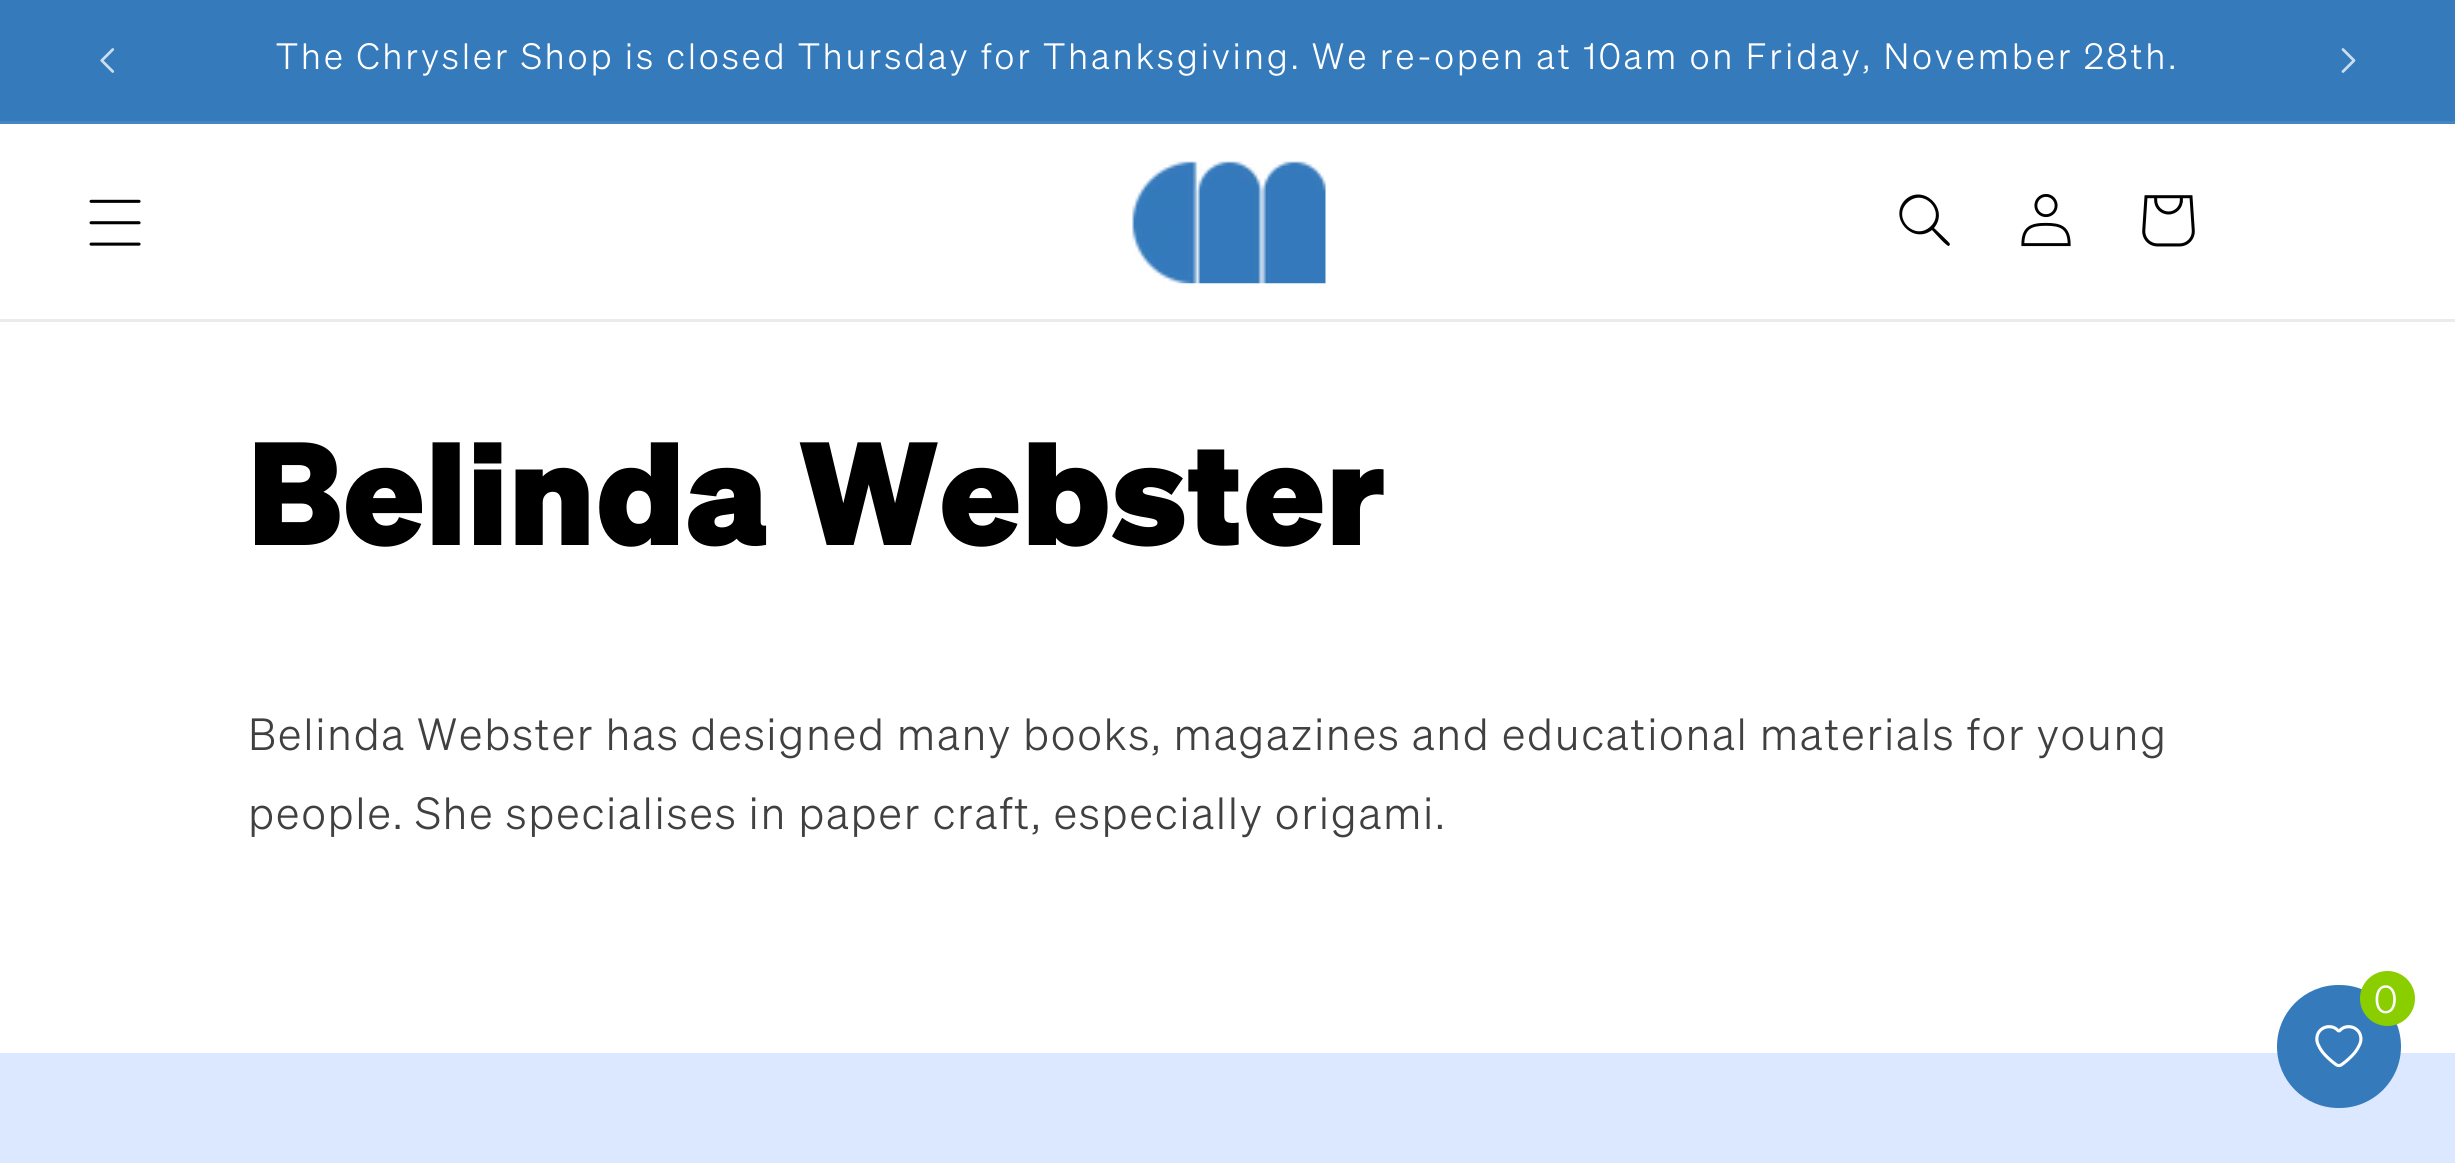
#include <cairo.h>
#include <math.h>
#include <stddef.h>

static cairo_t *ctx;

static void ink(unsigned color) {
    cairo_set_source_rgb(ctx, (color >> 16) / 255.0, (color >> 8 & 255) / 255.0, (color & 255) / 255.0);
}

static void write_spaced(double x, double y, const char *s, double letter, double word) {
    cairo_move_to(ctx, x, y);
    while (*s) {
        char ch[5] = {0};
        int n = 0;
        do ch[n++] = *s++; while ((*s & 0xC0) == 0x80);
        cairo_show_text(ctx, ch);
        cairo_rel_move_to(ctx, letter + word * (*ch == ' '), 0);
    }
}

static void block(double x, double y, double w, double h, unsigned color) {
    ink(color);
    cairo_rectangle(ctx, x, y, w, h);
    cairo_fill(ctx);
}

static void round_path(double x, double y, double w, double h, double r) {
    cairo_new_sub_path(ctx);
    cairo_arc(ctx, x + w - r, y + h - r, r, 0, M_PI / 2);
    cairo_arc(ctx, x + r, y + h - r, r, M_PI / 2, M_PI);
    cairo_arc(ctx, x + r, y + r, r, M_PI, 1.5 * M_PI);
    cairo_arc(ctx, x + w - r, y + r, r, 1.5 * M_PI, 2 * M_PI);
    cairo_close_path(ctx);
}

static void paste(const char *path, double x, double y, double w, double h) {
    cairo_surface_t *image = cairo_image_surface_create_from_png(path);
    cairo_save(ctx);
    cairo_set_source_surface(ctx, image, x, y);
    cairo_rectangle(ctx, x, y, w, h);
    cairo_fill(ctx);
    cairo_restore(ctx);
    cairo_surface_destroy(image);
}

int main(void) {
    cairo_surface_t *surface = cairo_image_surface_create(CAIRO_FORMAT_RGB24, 2455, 1163);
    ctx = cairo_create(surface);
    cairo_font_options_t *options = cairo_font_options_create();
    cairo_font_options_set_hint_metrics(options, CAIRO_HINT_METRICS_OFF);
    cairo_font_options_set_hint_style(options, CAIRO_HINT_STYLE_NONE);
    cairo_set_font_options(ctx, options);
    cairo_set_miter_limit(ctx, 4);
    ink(0xffffff);
    cairo_paint(ctx);
    block(0, 0, 2455, 121, 0x357abb);
    block(0, 121, 2455, 3, 0x4585c0);
    paste("pic1.png", 100, 48, 15, 25);
    cairo_select_font_face(ctx, "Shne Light", CAIRO_FONT_SLANT_NORMAL, CAIRO_FONT_WEIGHT_NORMAL);
    cairo_set_font_size(ctx, 35.75);
    ink(0xffffff);
    write_spaced(276, 69, "The Chrysler Shop is closed Thursday for Thanksgiving. We re-open at 10am on Friday, November 28th.", 2.75, 0);
    paste("pic2.png", 2341, 48, 15, 25);
    block(0, 319, 2455, 3, 0xebebeb);
    paste("pic3.png", 89, 199, 52, 47);
    paste("pic4.png", 1132, 161, 194, 123);
    ink(0x000000);
    cairo_set_fill_rule(ctx, CAIRO_FILL_RULE_EVEN_ODD);
    cairo_new_path(ctx);
    cairo_move_to(ctx, 1931, 226);
    cairo_curve_to(ctx, 1915, 242, 1892, 218, 1907, 203);
    cairo_curve_to(ctx, 1923, 187, 1946, 211, 1931, 226);
    cairo_close_path(ctx);
    cairo_move_to(ctx, 1932, 230);
    cairo_curve_to(ctx, 1913, 245, 1888, 218, 1905, 200);
    cairo_curve_to(ctx, 1923, 183, 1950, 209, 1934, 228);
    cairo_curve_to(ctx, 1936, 230, 1950, 243, 1950, 244);
    cairo_line_to(ctx, 1949, 246);
    cairo_curve_to(ctx, 1947, 247, 1934, 232, 1932, 230);
    cairo_close_path(ctx);
    cairo_fill(ctx);
    paste("pic5.png", 2021, 194, 50, 53);
    paste("pic6.png", 2142, 195, 53, 52);
    cairo_select_font_face(ctx, "Shne ExtraBold", CAIRO_FONT_SLANT_NORMAL, CAIRO_FONT_WEIGHT_NORMAL);
    cairo_set_font_size(ctx, 143);
    write_spaced(248, 545, "Belinda Webster", 1.65, 0);
    cairo_select_font_face(ctx, "Shne Light", CAIRO_FONT_SLANT_NORMAL, CAIRO_FONT_WEIGHT_NORMAL);
    cairo_set_font_size(ctx, 44);
    ink(0x404040);
    write_spaced(248, 750, "Belinda Webster has designed many books, magazines and educational materials for young", 1.65, 0);
    write_spaced(248, 829, "people. She specialises in paper craft, especially origami.", 1.65, 0);
    block(0, 1053, 2455, 110, 0xdbe8ff);
    ink(0x357abb);
    round_path(2277, 985, 124, 123, 61.5);
    cairo_fill(ctx);
    paste("pic7.png", 2315, 1025, 48, 43);
    ink(0x8ace00);
    cairo_arc(ctx, 2387.5, 998.5, 27.5, 0, 2 * M_PI);
    cairo_fill(ctx);
    cairo_set_font_size(ctx, 38);
    ink(0xffffff);
    write_spaced(2374, 1013, "0", 1.65, 0);
    cairo_surface_write_to_png(surface, "screenshot.png");
    cairo_font_options_destroy(options);
    cairo_destroy(ctx);
    cairo_surface_destroy(surface);
    return 0;
}
